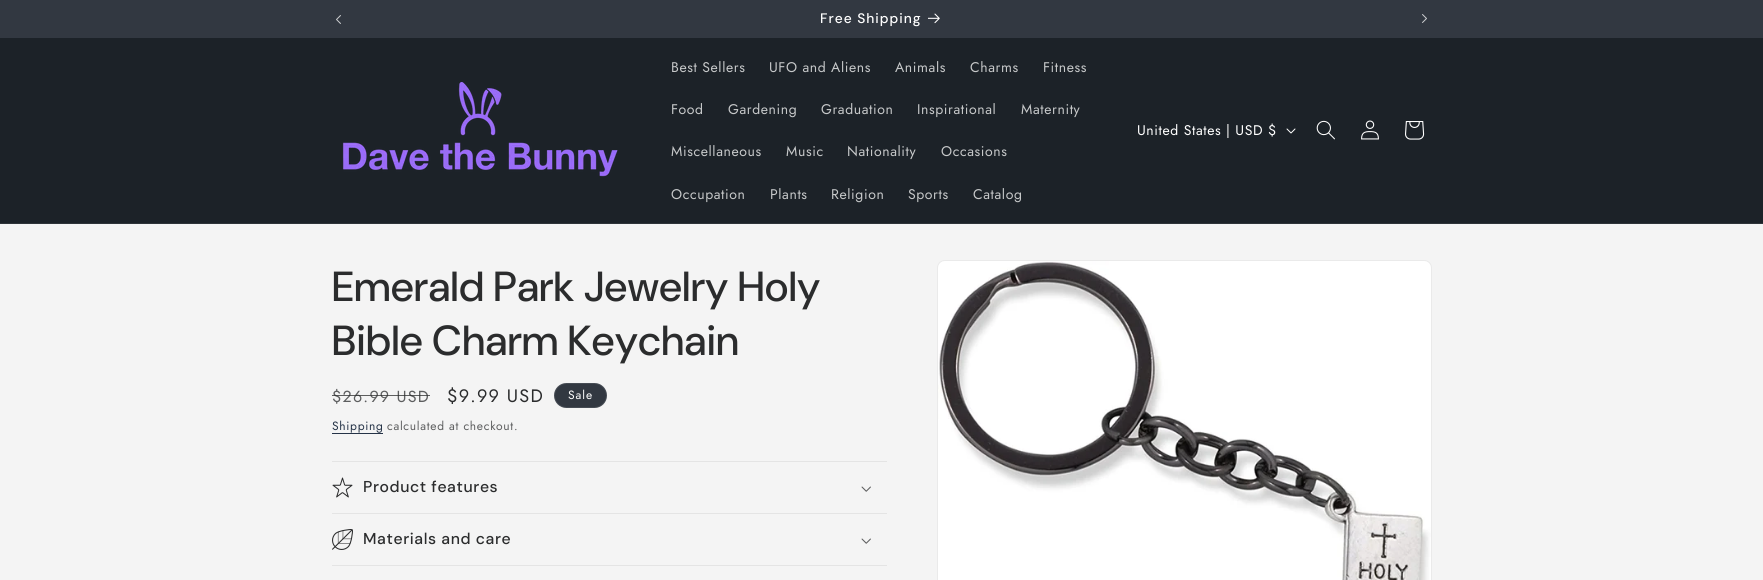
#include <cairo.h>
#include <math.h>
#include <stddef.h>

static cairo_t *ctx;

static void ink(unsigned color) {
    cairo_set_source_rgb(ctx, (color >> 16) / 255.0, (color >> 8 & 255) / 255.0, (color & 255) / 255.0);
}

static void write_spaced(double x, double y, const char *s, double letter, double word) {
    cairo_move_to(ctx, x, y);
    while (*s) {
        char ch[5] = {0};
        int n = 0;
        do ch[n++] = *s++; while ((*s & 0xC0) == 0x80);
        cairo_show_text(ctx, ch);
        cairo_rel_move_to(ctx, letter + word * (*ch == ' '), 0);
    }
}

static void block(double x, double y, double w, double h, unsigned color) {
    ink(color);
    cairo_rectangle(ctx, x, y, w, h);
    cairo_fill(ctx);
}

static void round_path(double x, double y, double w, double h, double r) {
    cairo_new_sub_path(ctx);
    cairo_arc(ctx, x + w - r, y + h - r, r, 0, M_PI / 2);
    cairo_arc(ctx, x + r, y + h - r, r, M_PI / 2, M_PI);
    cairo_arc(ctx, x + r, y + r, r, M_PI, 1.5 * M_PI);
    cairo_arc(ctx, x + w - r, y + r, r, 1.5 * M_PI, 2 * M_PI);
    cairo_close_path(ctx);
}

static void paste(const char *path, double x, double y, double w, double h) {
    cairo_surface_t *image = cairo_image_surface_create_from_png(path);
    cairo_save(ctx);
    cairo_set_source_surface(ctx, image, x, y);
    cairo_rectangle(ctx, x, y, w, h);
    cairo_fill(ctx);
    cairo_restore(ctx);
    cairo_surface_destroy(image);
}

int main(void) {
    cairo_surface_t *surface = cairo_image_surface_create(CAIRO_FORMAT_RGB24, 1763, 580);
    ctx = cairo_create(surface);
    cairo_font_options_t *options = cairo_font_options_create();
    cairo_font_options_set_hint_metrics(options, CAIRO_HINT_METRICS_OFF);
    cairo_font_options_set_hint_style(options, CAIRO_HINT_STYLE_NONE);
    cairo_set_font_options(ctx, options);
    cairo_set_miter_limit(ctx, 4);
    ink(0xf4f4f4);
    cairo_paint(ctx);
    block(0, 0, 1763, 38, 0x323841);
    paste("pic1.png", 336, 15, 5, 9);
    cairo_select_font_face(ctx, "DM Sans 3 Medium", CAIRO_FONT_SLANT_NORMAL, CAIRO_FONT_WEIGHT_NORMAL);
    cairo_set_font_size(ctx, 13.75);
    ink(0xffffff);
    write_spaced(820, 23, "Free Shipping", 1, 0);
    paste("pic2.png", 928, 13, 12, 11);
    paste("pic3.png", 1422, 14, 5, 9);
    block(0, 38, 1763, 185, 0x1c2228);
    block(0, 223, 1763, 1, 0x2e3439);
    paste("pic4.png", 342, 82, 276, 95);
    cairo_select_font_face(ctx, "Jost", CAIRO_FONT_SLANT_NORMAL, CAIRO_FONT_WEIGHT_NORMAL);
    cairo_set_font_size(ctx, 14);
    ink(0xc6c8c9);
    write_spaced(671, 72, "Best Sellers", 0.6, 0);
    write_spaced(769, 72, "UFO and Aliens", 0.6, 0);
    write_spaced(895, 72, "Animals", 0.6, 0);
    write_spaced(970, 72, "Charms", 0.6, 0);
    write_spaced(1043, 72, "Fitness", 0.6, 0);
    write_spaced(671, 114, "Food", 0.6, 0);
    write_spaced(728, 114, "Gardening", 0.6, 0);
    write_spaced(821, 114, "Graduation", 0.6, 0);
    write_spaced(917, 114, "Inspirational", 0.6, 0);
    write_spaced(1021, 114, "Maternity", 0.6, 0);
    write_spaced(671, 156, "Miscellaneous", 0.6, 0);
    write_spaced(786, 156, "Music", 0.6, 0);
    write_spaced(847, 156, "Nationality", 0.6, 0);
    write_spaced(941, 156, "Occasions", 0.6, 0);
    write_spaced(671, 199, "Occupation", 0.6, 0);
    write_spaced(770, 199, "Plants", 0.6, 0);
    write_spaced(831, 199, "Religion", 0.6, 0);
    write_spaced(908, 199, "Sports", 0.6, 0);
    write_spaced(973, 199, "Catalog", 0.6, 0);
    ink(0xffffff);
    write_spaced(1137, 135, "United States | USD $", 0.6, 0);
    paste("pic5.png", 1286, 128, 10, 6);
    paste("pic6.png", 1316, 120, 19, 20);
    paste("pic7.png", 1361, 120, 18, 20);
    paste("pic8.png", 1405, 121, 20, 19);
    cairo_select_font_face(ctx, "DM Sans Medium", CAIRO_FONT_SLANT_NORMAL, CAIRO_FONT_WEIGHT_NORMAL);
    cairo_set_font_size(ctx, 42);
    ink(0x2b2c2d);
    write_spaced(332, 301, "Emerald Park Jewelry Holy", 0.6, 0);
    write_spaced(332, 355, "Bible Charm Keychain", 0.6, 0);
    cairo_select_font_face(ctx, "Jost", CAIRO_FONT_SLANT_NORMAL, CAIRO_FONT_WEIGHT_NORMAL);
    cairo_set_font_size(ctx, 16);
    ink(0x5d5e5f);
    write_spaced(332, 402, "$26.99 USD", 1.25, 0);
    cairo_set_source_rgba(ctx, 0.169, 0.173, 0.176, 0.75);
    cairo_rectangle(ctx, 332, 395, 98, 1);
    cairo_fill(ctx);
    cairo_set_font_size(ctx, 18);
    ink(0x2b2c2d);
    write_spaced(447, 402, "$9.99 USD", 1.25, 0);
    ink(0x323841);
    round_path(554, 383, 53, 25, 12.5);
    cairo_fill(ctx);
    round_path(554.5, 383.5, 52, 24, 12);
    cairo_set_source_rgba(ctx, 1, 1, 1, 0.1);
    cairo_set_line_width(ctx, 1);
    cairo_stroke(ctx);
    cairo_set_font_size(ctx, 12);
    ink(0xffffff);
    write_spaced(568, 399, "Sale", 1, 0);
    ink(0x253347);
    write_spaced(332, 430, "Shipping", 0.7, 0);
    block(332, 433, 51, 1, 0x253347);
    ink(0x5d5e5f);
    write_spaced(387, 430, "calculated at checkout.", 0.7, 0);
    block(332, 461, 555, 1, 0xe4e4e4);
    block(332, 513, 555, 1, 0xe4e4e4);
    paste("pic9.png", 332, 477, 21, 21);
    cairo_select_font_face(ctx, "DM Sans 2 Medium", CAIRO_FONT_SLANT_NORMAL, CAIRO_FONT_WEIGHT_NORMAL);
    cairo_set_font_size(ctx, 15.75);
    ink(0x2b2c2d);
    write_spaced(363, 492, "Product features", 0.6, 0);
    paste("pic10.png", 861, 486, 10, 6);
    block(332, 565, 555, 1, 0xe4e4e4);
    paste("pic11.png", 332, 529, 21, 21);
    ink(0x2b2c2d);
    write_spaced(363, 544, "Materials and care", 0.6, 0);
    paste("pic10.png", 861, 538, 10, 6);
    round_path(937.5, 260.5, 494, 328, 7.5);
    ink(0xeaeaea);
    cairo_stroke(ctx);
    paste("pic12.png", 938, 261, 493, 319);
    cairo_surface_write_to_png(surface, "screenshot.png");
    cairo_font_options_destroy(options);
    cairo_destroy(ctx);
    cairo_surface_destroy(surface);
    return 0;
}
